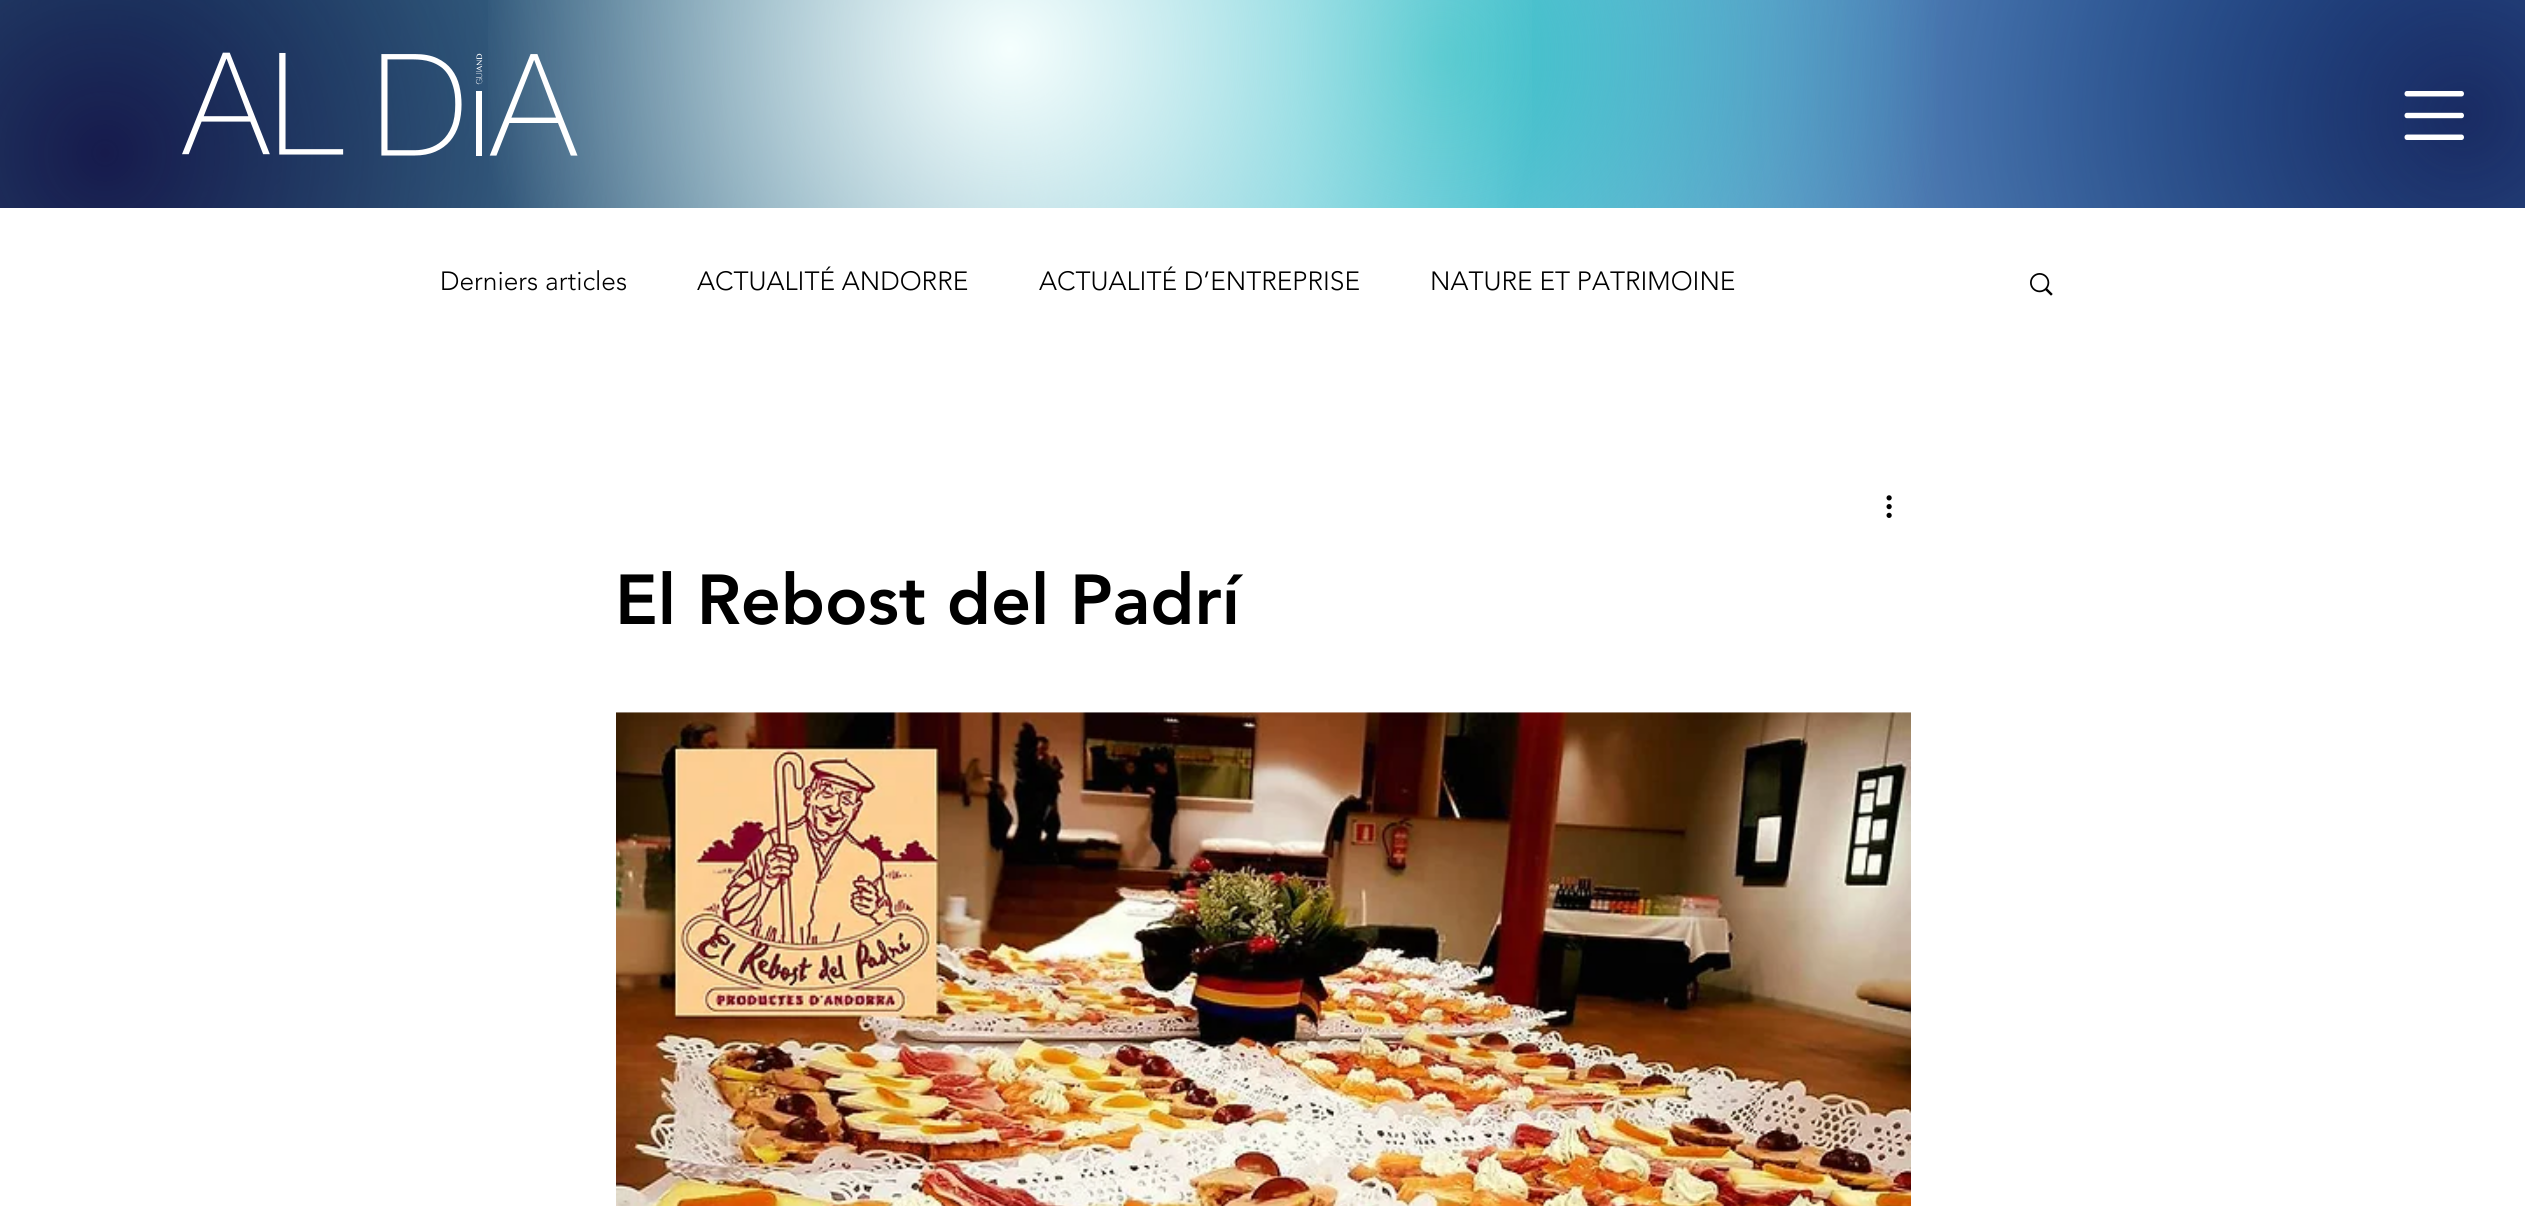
#include <cairo.h>
#include <math.h>
#include <stddef.h>

typedef struct { const char *family; double size; int italic, bold; unsigned color; } style_t;
static cairo_t *ctx;

static void ink(unsigned color) {
    cairo_set_source_rgb(ctx, (color >> 16) / 255.0, (color >> 8 & 255) / 255.0, (color & 255) / 255.0);
}

static void write(double x, double y, const char *s, const style_t *st) {
    cairo_select_font_face(ctx, st->family, st->italic ? CAIRO_FONT_SLANT_ITALIC : CAIRO_FONT_SLANT_NORMAL,
        st->bold ? CAIRO_FONT_WEIGHT_BOLD : CAIRO_FONT_WEIGHT_NORMAL);
    cairo_set_font_size(ctx, st->size);
    ink(st->color);
    cairo_move_to(ctx, x, y);
    cairo_show_text(ctx, s);
}

static void paste(const char *path, double x, double y, double w, double h) {
    cairo_surface_t *image = cairo_image_surface_create_from_png(path);
    cairo_save(ctx);
    cairo_set_source_surface(ctx, image, x, y);
    cairo_rectangle(ctx, x, y, w, h);
    cairo_fill(ctx);
    cairo_restore(ctx);
    cairo_surface_destroy(image);
}

static const style_t s1 = {"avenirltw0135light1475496 Light", 26.25, 0, 0, 0x000000};
static const style_t s2 = {"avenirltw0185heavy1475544 Black", 70, 0, 0, 0x000000};

int main(void) {
    cairo_surface_t *surface = cairo_image_surface_create(CAIRO_FORMAT_RGB24, 2525, 1206);
    ctx = cairo_create(surface);
    cairo_font_options_t *options = cairo_font_options_create();
    cairo_font_options_set_hint_metrics(options, CAIRO_HINT_METRICS_OFF);
    cairo_font_options_set_hint_style(options, CAIRO_HINT_STYLE_NONE);
    cairo_set_font_options(ctx, options);
    cairo_set_miter_limit(ctx, 4);
    cairo_pattern_t *gradient;
    ink(0xffffff);
    cairo_paint(ctx);
    gradient = cairo_pattern_create_radial(2366, 24, 0, 2366, 24, 2373);
    cairo_pattern_add_color_stop_rgba(gradient, 0, 0.239, 0.608, 0.914, 1);
    cairo_pattern_add_color_stop_rgba(gradient, 0.7, 1, 1, 1, 1);
    cairo_set_source(ctx, gradient);
    cairo_pattern_destroy(gradient);
    cairo_rectangle(ctx, 734, 0, 1791, 208);
    cairo_fill(ctx);
    gradient = cairo_pattern_create_radial(156, 26, 0, 156, 26, 2377);
    cairo_pattern_add_color_stop_rgba(gradient, 0, 0.227, 0.753, 0.78, 1);
    cairo_pattern_add_color_stop_rgba(gradient, 0.7, 0.227, 0.753, 0.78, 0);
    cairo_set_source(ctx, gradient);
    cairo_pattern_destroy(gradient);
    cairo_rectangle(ctx, 0, 0, 1762, 208);
    cairo_fill(ctx);
    gradient = cairo_pattern_create_radial(105, 153, 0, 105, 153, 2425);
    cairo_pattern_add_color_stop_rgba(gradient, 0, 0.086, 0.098, 0.294, 0.99);
    cairo_pattern_add_color_stop_rgba(gradient, 0.5, 0.086, 0.098, 0.294, 0);
    cairo_set_source(ctx, gradient);
    cairo_pattern_destroy(gradient);
    cairo_rectangle(ctx, 0, 0, 1291, 208);
    cairo_fill(ctx);
    gradient = cairo_pattern_create_radial(2462, 115, 0, 2462, 115, 2465);
    cairo_pattern_add_color_stop_rgba(gradient, 0, 0.098, 0.169, 0.388, 1);
    cairo_pattern_add_color_stop_rgba(gradient, 0.4, 0.098, 0.169, 0.388, 0);
    cairo_set_source(ctx, gradient);
    cairo_pattern_destroy(gradient);
    cairo_rectangle(ctx, 1497, 0, 1028, 208);
    cairo_fill(ctx);
    gradient = cairo_pattern_create_radial(1441, 57, 0, 1441, 57, 1449);
    cairo_pattern_add_color_stop_rgba(gradient, 0, 0.227, 0.753, 0.78, 1);
    cairo_pattern_add_color_stop_rgba(gradient, 0.35, 0.227, 0.753, 0.78, 0);
    cairo_set_source(ctx, gradient);
    cairo_pattern_destroy(gradient);
    cairo_rectangle(ctx, 958, 0, 978, 208);
    cairo_fill(ctx);
    gradient = cairo_pattern_create_radial(1010, 49, 0, 1010, 49, 1524);
    cairo_pattern_add_color_stop_rgba(gradient, 0, 0.961, 1, 0.996, 1);
    cairo_pattern_add_color_stop_rgba(gradient, 0.35, 0.961, 1, 0.996, 0);
    cairo_set_source(ctx, gradient);
    cairo_pattern_destroy(gradient);
    cairo_rectangle(ctx, 488, 0, 1044, 208);
    cairo_fill(ctx);
    paste("pic1.png", 182, 52, 396, 104);
    paste("pic2.png", 2404, 91, 60, 49);
    write(440, 290, "Derniers articles", &s1);
    write(697, 290, "ACTUALITÉ ANDORRE", &s1);
    write(1039, 290, "ACTUALITÉ D’ENTREPRISE", &s1);
    write(1430, 290, "NATURE ET PATRIMOINE", &s1);
    paste("pic3.png", 2030, 273, 23, 23);
    paste("pic4.png", 1886, 495, 6, 23);
    write(615, 624, "El Rebost del Padrí", &s2);
    paste("pic5.png", 616, 712, 1295, 494);
    cairo_surface_write_to_png(surface, "screenshot.png");
    cairo_font_options_destroy(options);
    cairo_destroy(ctx);
    cairo_surface_destroy(surface);
    return 0;
}
